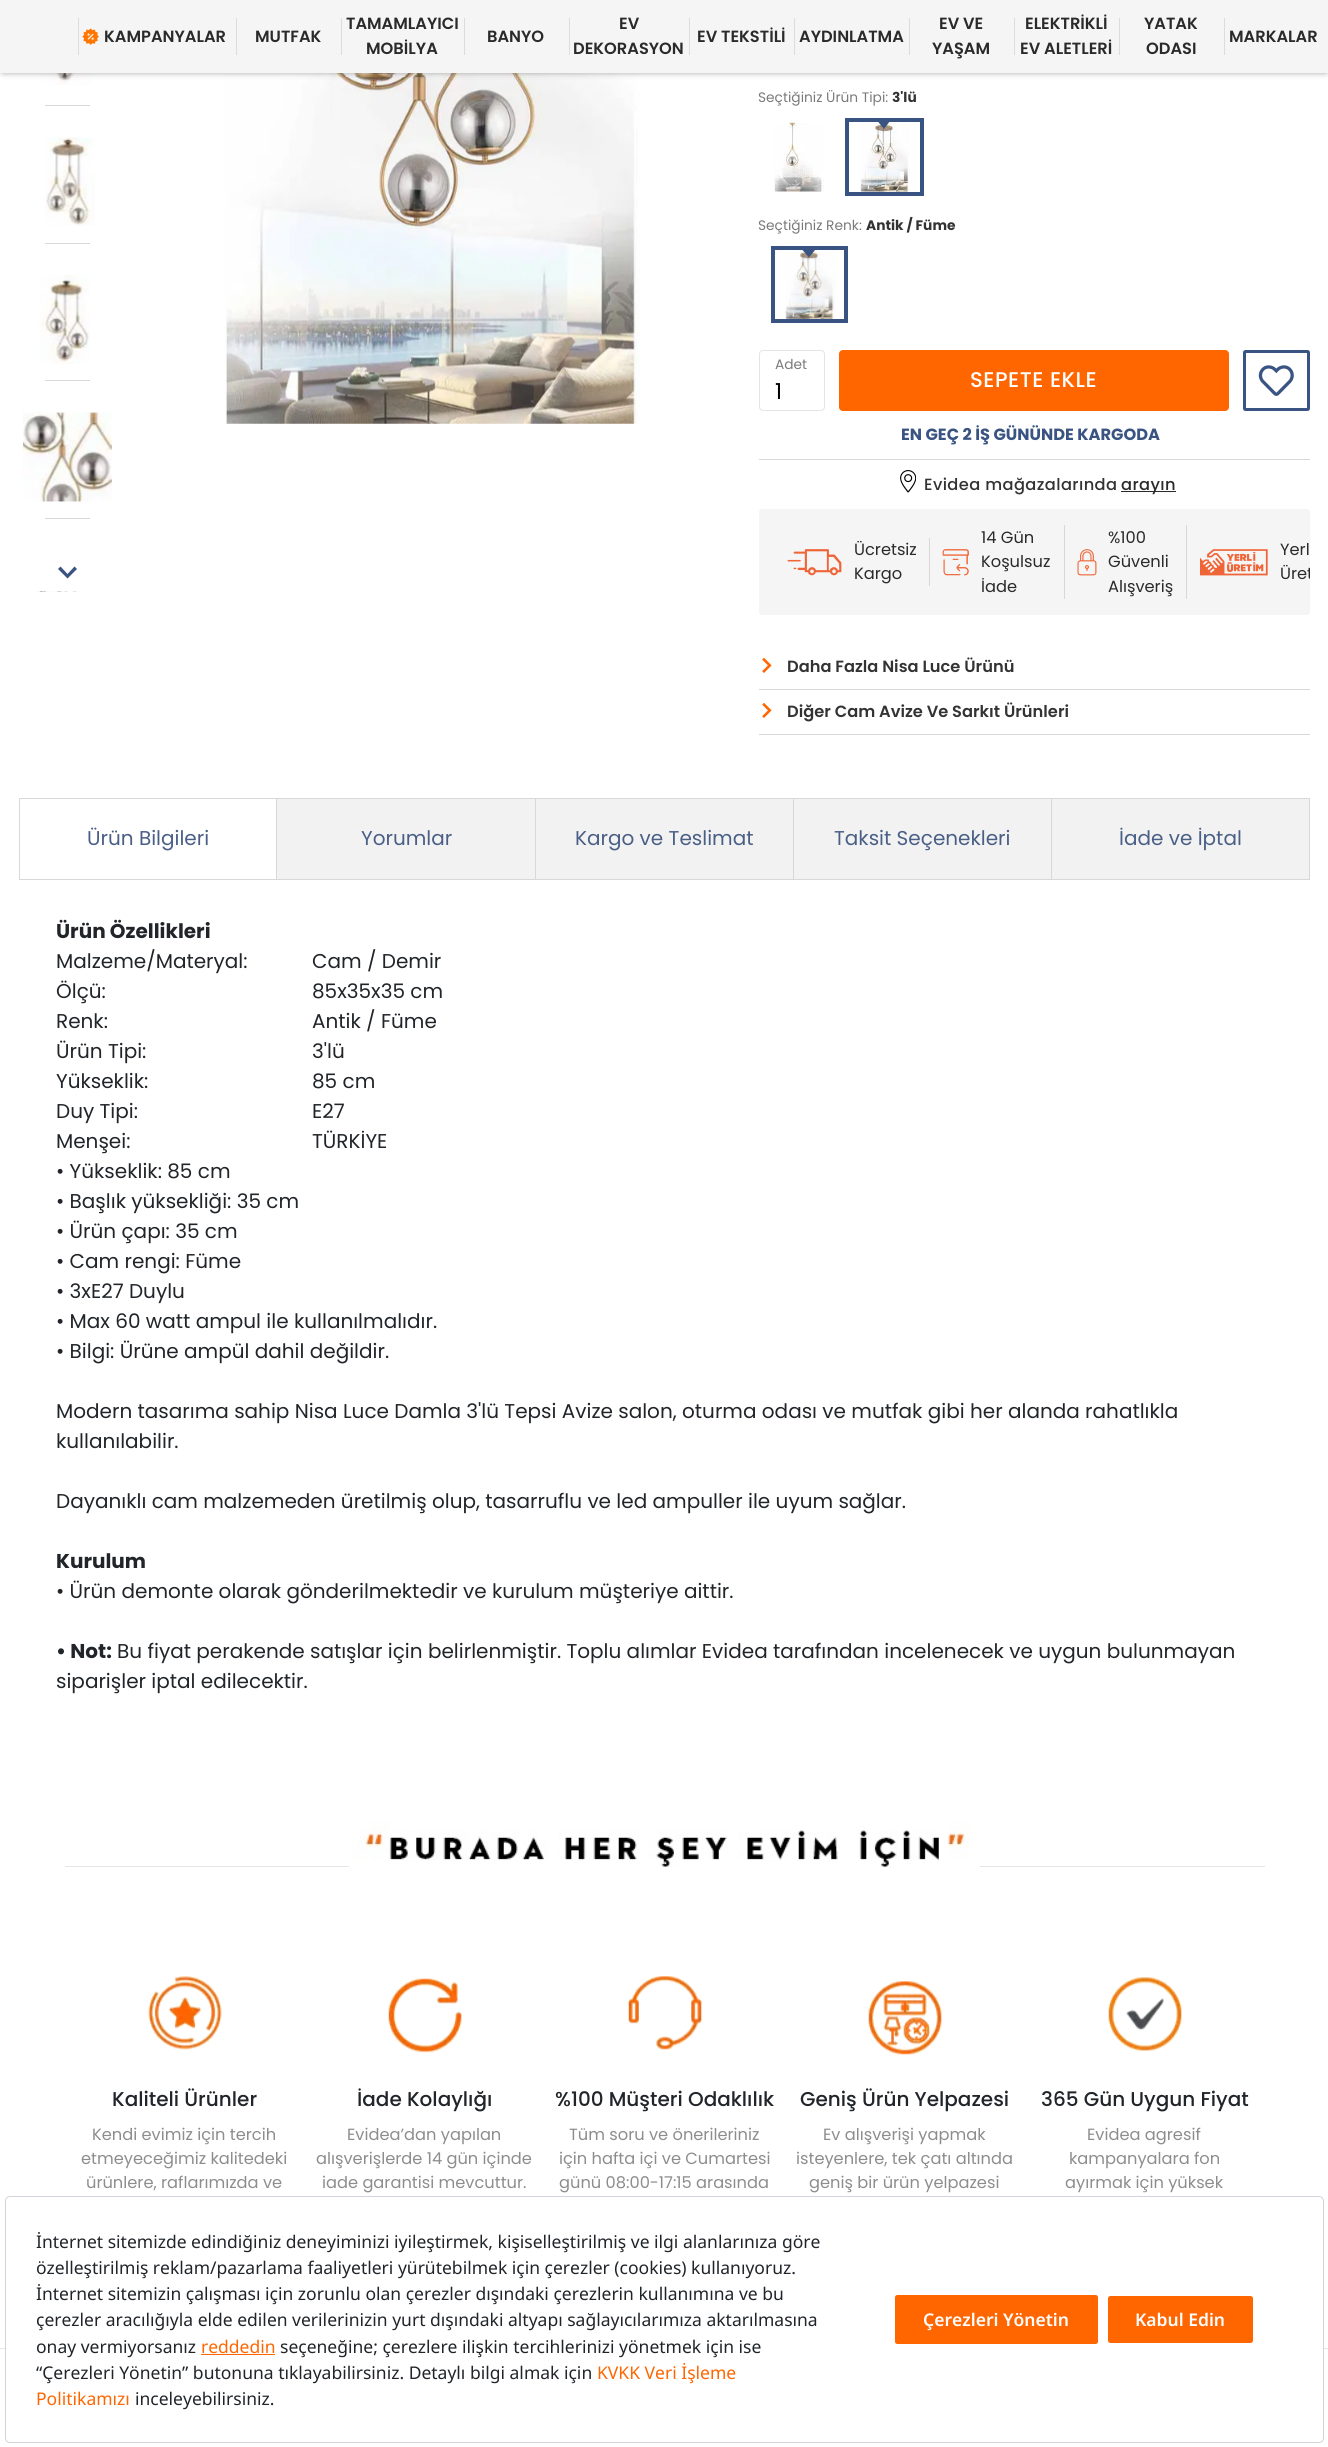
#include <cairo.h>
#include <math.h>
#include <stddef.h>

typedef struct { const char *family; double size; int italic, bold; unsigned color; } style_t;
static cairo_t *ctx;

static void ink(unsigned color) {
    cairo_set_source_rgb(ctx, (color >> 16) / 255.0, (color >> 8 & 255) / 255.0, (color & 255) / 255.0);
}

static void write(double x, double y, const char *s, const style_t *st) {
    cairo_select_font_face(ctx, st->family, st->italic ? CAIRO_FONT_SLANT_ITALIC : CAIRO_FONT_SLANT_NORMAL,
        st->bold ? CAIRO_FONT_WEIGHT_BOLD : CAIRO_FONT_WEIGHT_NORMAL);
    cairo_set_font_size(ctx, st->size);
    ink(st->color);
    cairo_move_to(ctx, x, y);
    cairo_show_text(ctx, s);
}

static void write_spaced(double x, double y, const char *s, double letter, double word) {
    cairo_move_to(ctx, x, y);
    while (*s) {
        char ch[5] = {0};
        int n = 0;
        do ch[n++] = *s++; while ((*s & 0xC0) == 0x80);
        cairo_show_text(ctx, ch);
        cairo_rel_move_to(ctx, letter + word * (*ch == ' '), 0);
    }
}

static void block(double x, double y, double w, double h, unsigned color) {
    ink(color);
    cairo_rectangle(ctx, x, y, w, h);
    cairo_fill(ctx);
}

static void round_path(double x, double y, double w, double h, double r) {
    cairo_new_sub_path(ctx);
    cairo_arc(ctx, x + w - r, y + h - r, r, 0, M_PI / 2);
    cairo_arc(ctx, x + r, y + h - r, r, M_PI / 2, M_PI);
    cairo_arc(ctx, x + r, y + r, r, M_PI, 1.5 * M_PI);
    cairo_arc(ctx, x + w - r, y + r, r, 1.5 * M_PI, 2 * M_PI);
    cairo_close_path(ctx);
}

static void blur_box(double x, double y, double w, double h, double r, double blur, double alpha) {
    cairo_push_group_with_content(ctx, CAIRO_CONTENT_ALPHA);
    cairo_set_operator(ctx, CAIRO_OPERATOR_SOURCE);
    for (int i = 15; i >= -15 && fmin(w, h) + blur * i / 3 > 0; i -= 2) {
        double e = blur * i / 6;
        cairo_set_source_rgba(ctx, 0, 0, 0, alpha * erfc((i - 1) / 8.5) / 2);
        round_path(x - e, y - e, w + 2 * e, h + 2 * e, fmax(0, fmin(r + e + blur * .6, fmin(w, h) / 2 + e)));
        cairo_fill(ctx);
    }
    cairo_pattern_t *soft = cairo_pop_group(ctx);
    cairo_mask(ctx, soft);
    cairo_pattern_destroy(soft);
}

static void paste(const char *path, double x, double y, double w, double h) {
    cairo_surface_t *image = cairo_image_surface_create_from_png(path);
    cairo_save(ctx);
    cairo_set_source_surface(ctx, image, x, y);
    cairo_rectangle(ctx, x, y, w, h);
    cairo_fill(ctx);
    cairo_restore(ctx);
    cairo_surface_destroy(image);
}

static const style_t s1 = {"Poppins SemiBold", 16.25, 0, 0, 0x2a2a2a};
static const style_t s2 = {"Poppins", 13.75, 0, 0, 0x7a7a7a};
static const style_t s3 = {"Poppins", 13.75, 0, 1, 0x333333};
static const style_t s4 = {"Poppins", 22, 0, 0, 0x000000};
static const style_t s5 = {"Poppins", 16.25, 0, 1, 0x395482};
static const style_t s6 = {"Poppins", 16.25, 0, 0, 0x2a2a2a};
static const style_t s7 = {"Poppins SemiBold", 16.25, 0, 0, 0x333333};
static const style_t s8 = {"Poppins", 20, 0, 0, 0x4a5f86};
static const style_t s9 = {"Poppins", 20, 0, 1, 0x212529};
static const style_t s10 = {"Poppins", 20, 0, 0, 0x212529};
static const style_t s11 = {"Poppins Medium", 20, 0, 0, 0x212529};
static const style_t s12 = {"Poppins", 16.25, 0, 0, 0x8d8d8d};
static const style_t s13 = {"Noto Sans", 17.5, 0, 0, 0x212529};
static const style_t s14 = {"Noto Sans", 17.5, 0, 0, 0xff6600};
static const style_t s15 = {"Noto Sans SemiBold", 17.5, 0, 0, 0xfefefe};

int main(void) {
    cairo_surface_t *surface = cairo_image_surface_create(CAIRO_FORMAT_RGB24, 1328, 2447);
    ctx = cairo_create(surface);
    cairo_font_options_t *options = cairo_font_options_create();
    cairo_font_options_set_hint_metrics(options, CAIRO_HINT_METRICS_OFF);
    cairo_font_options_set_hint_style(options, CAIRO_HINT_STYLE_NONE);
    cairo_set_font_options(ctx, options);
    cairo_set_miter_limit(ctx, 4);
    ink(0xffffff);
    cairo_paint(ctx);
    paste("pic2.png", 41, 73, 51, 12);
    paste("pic7.png", 225, 73, 415, 351);
    ink(0x333333);
    blur_box(3, 3, 1323, 67, 0, 4, 1);
    block(0, 0, 1328, 73, 0xf5f5f5);
    block(78, 18, 1, 37, 0xdcdcdc);
    paste("pic1.png", 82, 28, 17, 17);
    write(104, 42, "KAMPANYALAR", &s1);
    block(236, 18, 1, 37, 0xdcdcdc);
    write(255, 42, "MUTFAK", &s1);
    block(341, 18, 1, 37, 0xdcdcdc);
    write(346, 29, "TAMAMLAYICI", &s1);
    write(366, 54, "MOBİLYA", &s1);
    block(464, 18, 1, 37, 0xdcdcdc);
    write(487, 42, "BANYO", &s1);
    block(569, 18, 1, 37, 0xdcdcdc);
    write(619, 29, "EV", &s1);
    write(573, 54, "DEKORASYON", &s1);
    block(689, 18, 1, 37, 0xdcdcdc);
    write(697, 42, "EV TEKSTİLİ", &s1);
    block(794, 18, 1, 37, 0xdcdcdc);
    write(799, 42, "AYDINLATMA", &s1);
    block(909, 18, 1, 37, 0xdcdcdc);
    write(939, 29, "EV VE", &s1);
    write(932, 54, "YAŞAM", &s1);
    block(1014, 18, 1, 37, 0xdcdcdc);
    write(1025, 29, "ELEKTRİKLİ", &s1);
    write(1020, 54, "EV ALETLERİ", &s1);
    block(1119, 18, 1, 37, 0xdcdcdc);
    write(1144, 29, "YATAK", &s1);
    write(1146, 54, "ODASI", &s1);
    block(1224, 18, 1, 37, 0xdcdcdc);
    write(1229, 42, "MARKALAR", &s1);
    block(45, 105, 45, 1, 0xd8d8d8);
    paste("pic3.png", 45, 137, 50, 89);
    block(45, 243, 45, 1, 0xd8d8d8);
    paste("pic4.png", 39, 275, 51, 89);
    block(45, 380, 45, 1, 0xd8d8d8);
    paste("pic5.png", 23, 412, 89, 90);
    block(45, 518, 45, 1, 0xd8d8d8);
    paste("pic6.png", 36, 591, 51, 1);
    ink(0x395482);
    cairo_new_path(ctx);
    cairo_move_to(ctx, 58, 569);
    cairo_line_to(ctx, 60.5, 566.5);
    cairo_line_to(ctx, 67.5, 574);
    cairo_line_to(ctx, 74.5, 566.5);
    cairo_line_to(ctx, 77, 569);
    cairo_line_to(ctx, 67.5, 578.5);
    cairo_close_path(ctx);
    cairo_fill(ctx);
    write(758, 102, "Seçtiğiniz Ürün Tipi:", &s2);
    write(892, 102, "3'lü", &s3);
    paste("pic8.png", 774, 122, 50, 70);
    paste("pic9.png", 860, 122, 50, 70);
    cairo_rectangle(ctx, 847, 120, 75, 74);
    ink(0x395482);
    cairo_set_line_width(ctx, 4);
    cairo_stroke(ctx);
    cairo_new_path(ctx);
    cairo_move_to(ctx, 877.5, 121);
    cairo_line_to(ctx, 890, 121);
    cairo_line_to(ctx, 884, 129);
    cairo_close_path(ctx);
    cairo_fill(ctx);
    write(758, 230, "Seçtiğiniz Renk:", &s2);
    write(866, 230, "Antik / Füme", &s3);
    paste("pic10.png", 785, 250, 51, 69);
    cairo_rectangle(ctx, 773, 248, 73, 73);
    ink(0x395482);
    cairo_stroke(ctx);
    cairo_new_path(ctx);
    cairo_move_to(ctx, 802.5, 250);
    cairo_line_to(ctx, 815, 250);
    cairo_line_to(ctx, 809, 257.5);
    cairo_close_path(ctx);
    cairo_fill(ctx);
    round_path(759.5, 350.5, 65, 60, 3.5);
    ink(0xe4e4e4);
    cairo_set_line_width(ctx, 1);
    cairo_stroke(ctx);
    write(775, 369, "Adet", &s2);
    write(775, 399, "1", &s4);
    ink(0xff6600);
    round_path(839.5, 350.5, 389, 60, 3.5);
    cairo_fill_preserve(ctx);
    cairo_stroke(ctx);
    cairo_select_font_face(ctx, "Poppins Medium", CAIRO_FONT_SLANT_NORMAL, CAIRO_FONT_WEIGHT_NORMAL);
    cairo_set_font_size(ctx, 21.25);
    ink(0xfefefe);
    write_spaced(970, 387, "SEPETE EKLE", 0.5, 0);
    round_path(1244.5, 351.5, 64, 58, 1);
    ink(0x395482);
    cairo_set_line_width(ctx, 3);
    cairo_stroke(ctx);
    paste("pic11.png", 1258, 365, 36, 31);
    block(759, 459, 551, 1, 0xd8d8d8);
    write(901, 440, "EN GEÇ 2 İŞ GÜNÜNDE KARGODA", &s5);
    paste("pic12.png", 900, 470, 16, 23);
    cairo_select_font_face(ctx, "Poppins Medium", CAIRO_FONT_SLANT_NORMAL, CAIRO_FONT_WEIGHT_NORMAL);
    ink(0x333333);
    write_spaced(924, 490, "Evidea mağazalarında", 0.4, 0);
    block(1121, 491, 55, 1, 0x2a2a2a);
    write_spaced(1121, 490, "arayın", 0.4, 0);
    ink(0xf5f5f5);
    round_path(759, 509, 551, 106, 2.5);
    cairo_fill(ctx);
    block(929, 538, 1, 48, 0xd8d8d8);
    paste("pic13.png", 787, 549, 55, 27);
    write(854, 555, "Ücretsiz", &s6);
    write(854, 579, "Kargo", &s6);
    block(1064, 525, 1, 74, 0xd8d8d8);
    paste("pic14.png", 942, 549, 27, 27);
    write(981, 543, "14 Gün", &s6);
    write(981, 567, "Koşulsuz", &s6);
    write(981, 592, "İade", &s6);
    block(1186, 525, 1, 74, 0xd8d8d8);
    paste("pic15.png", 1077, 549, 20, 27);
    write(1108, 543, "%100", &s6);
    write(1108, 567, "Güvenli", &s6);
    write(1108, 592, "Alışveriş", &s6);
    paste("pic16.png", 1200, 549, 68, 27);
    write(1280, 555, "Yerl", &s6);
    cairo_save(ctx);
    cairo_rectangle(ctx, 759, 0, 551, 735);
    cairo_clip(ctx);
    write(1280, 579, "Üret", &s6);
    cairo_restore(ctx);
    block(759, 689, 551, 1, 0xd8d8d8);
    paste("pic17.png", 762, 657, 10, 16);
    write(787, 672, "Daha Fazla Nisa Luce Ürünü", &s7);
    block(759, 734, 551, 1, 0xd8d8d8);
    paste("pic17.png", 762, 702, 10, 16);
    write(787, 717, "Diğer Cam Avize Ve Sarkıt Ürünleri", &s7);
    block(19, 798, 1032, 1, 0xd8d8d8);
    block(19, 879, 1032, 1, 0xd8d8d8);
    block(19, 798, 1, 82, 0xd8d8d8);
    write(87, 845, "Ürün Bilgileri", &s8);
    block(277, 799, 258, 80, 0xf2f2f2);
    block(276, 798, 1, 82, 0xd8d8d8);
    write(361, 845, "Yorumlar", &s8);
    block(536, 799, 257, 80, 0xf2f2f2);
    block(535, 798, 1, 82, 0xd8d8d8);
    write(575, 845, "Kargo ve Teslimat", &s8);
    block(794, 799, 257, 80, 0xf2f2f2);
    block(793, 798, 1, 82, 0xd8d8d8);
    write(834, 845, "Taksit Seçenekleri", &s8);
    ink(0xf2f2f2);
    cairo_rectangle(ctx, 1051.5, 798.5, 258, 81);
    cairo_fill_preserve(ctx);
    ink(0xd8d8d8);
    cairo_set_line_width(ctx, 1);
    cairo_stroke(ctx);
    write(1119, 845, "İade ve İptal", &s8);
    write(56, 938, "Ürün Özellikleri", &s9);
    write(56, 968, "Malzeme/Materyal:", &s10);
    write(312, 968, "Cam / Demir", &s10);
    write(56, 998, "Ölçü:", &s10);
    write(312, 998, "85x35x35 cm", &s10);
    write(56, 1028, "Renk:", &s10);
    write(312, 1028, "Antik / Füme", &s10);
    write(56, 1058, "Ürün Tipi:", &s10);
    write(312, 1058, "3'lü", &s10);
    write(56, 1088, "Yükseklik:", &s10);
    write(312, 1088, "85 cm", &s10);
    write(56, 1118, "Duy Tipi:", &s10);
    write(312, 1118, "E27", &s10);
    write(56, 1148, "Menşei:", &s10);
    write(312, 1148, "TÜRKİYE", &s10);
    write(56, 1178, "• Yükseklik: 85 cm", &s10);
    write(56, 1208, "• Başlık yüksekliği: 35 cm", &s10);
    write(56, 1238, "• Ürün çapı: 35 cm", &s10);
    write(56, 1268, "• Cam rengi: Füme", &s10);
    write(56, 1298, "• 3xE27 Duylu", &s10);
    write(56, 1328, "• Max 60 watt ampul ile kullanılmalıdır.", &s10);
    write(56, 1358, "• Bilgi: Ürüne ampül dahil değildir.", &s10);
    write(56, 1418, "Modern tasarıma sahip Nisa Luce Damla 3'lü Tepsi Avize salon, oturma odası ve mutfak gibi her alanda rahatlıkla", &s10);
    write(56, 1448, "kullanılabilir.", &s10);
    write(56, 1508, "Dayanıklı cam malzemeden üretilmiş olup, tasarruflu ve led ampuller ile uyum sağlar.", &s10);
    write(56, 1568, "Kurulum", &s9);
    write(56, 1598, "• Ürün demonte olarak gönderilmektedir ve kurulum müşteriye aittir.", &s10);
    write(56, 1658, "• Not:", &s9);
    write(117, 1658, "Bu fiyat perakende satışlar için belirlenmiştir. Toplu alımlar Evidea tarafından incelenecek ve uygun bulunmayan", &s10);
    write(56, 1688, "siparişler iptal edilecektir.", &s10);
    block(65, 1866, 1200, 1, 0xe5e5e5);
    paste("pic18.png", 348, 1820, 632, 47);
    paste("pic19.png", 148, 1976, 74, 74);
    write(112, 2106, "Kaliteli Ürünler", &s11);
    write(92, 2140, "Kendi evimiz için tercih", &s12);
    write(81, 2164, "etmeyeceğimiz kalitedeki", &s12);
    write(86, 2188, "ürünlere, raflarımızda ve", &s12);
    paste("pic20.png", 388, 1978, 74, 75);
    write(357, 2106, "İade Kolaylığı", &s11);
    write(347, 2140, "Evidea’dan yapılan", &s12);
    write(316, 2164, "alışverişlerde 14 gün içinde", &s12);
    write(322, 2188, "iade garantisi mevcuttur.", &s12);
    paste("pic21.png", 628, 1976, 74, 74);
    write(555, 2106, "%100 Müşteri Odaklılık", &s11);
    write(569, 2140, "Tüm soru ve önerileriniz", &s12);
    write(559, 2164, "için hafta içi ve Cumartesi", &s12);
    write(559, 2188, "günü 08:00-17:15 arasında", &s12);
    paste("pic22.png", 868, 1981, 74, 74);
    write(800, 2106, "Geniş Ürün Yelpazesi", &s11);
    write(823, 2140, "Ev alışverişi yapmak", &s12);
    write(796, 2164, "isteyenlere, tek çatı altında", &s12);
    write(809, 2188, "geniş bir ürün yelpazesi", &s12);
    paste("pic23.png", 1108, 1977, 74, 75);
    write(1041, 2106, "365 Gün Uygun Fiyat", &s11);
    write(1087, 2140, "Evidea agresif", &s12);
    write(1069, 2164, "kampanyalara fon", &s12);
    write(1065, 2188, "ayırmak için yüksek", &s12);
    block(0, 2348, 1328, 1, 0xe5e5e5);
    ink(0xffffff);
    round_path(5.5, 2196.5, 1318, 246, 4.5);
    cairo_fill_preserve(ctx);
    ink(0xd1d5db);
    cairo_stroke(ctx);
    write(36, 2248, "İnternet sitemizde edindiğiniz deneyiminizi iyileştirmek, kişiselleştirilmiş ve ilgi alanlarınıza göre", &s13);
    write(36, 2274, "özelleştirilmiş reklam/pazarlama faaliyetleri yürütebilmek için çerezler (cookies) kullanıyoruz.", &s13);
    write(36, 2300, "İnternet sitemizin çalışması için zorunlu olan çerezler dışındaki çerezlerin kullanımına ve bu", &s13);
    write(36, 2326, "çerezler aracılığıyla elde edilen verilerinizin yurt dışındaki altyapı sağlayıcılarımıza aktarılmasına", &s13);
    write(36, 2353, "onay vermiyorsanız", &s13);
    write(201, 2353, "reddedin", &s14);
    block(201, 2354, 74, 1, 0xff6600);
    write(280, 2353, "seçeneğine; çerezlere ilişkin tercihlerinizi yönetmek için ise", &s13);
    write(36, 2379, "“Çerezleri Yönetin” butonuna tıklayabilirsiniz. Detaylı bilgi almak için", &s13);
    write(597, 2379, "KVKK Veri İşleme", &s14);
    write(36, 2405, "Politikamızı", &s14);
    write(135, 2405, "inceleyebilirsiniz.", &s13);
    ink(0xff6600);
    round_path(895.5, 2295.5, 202, 48, 2);
    cairo_fill_preserve(ctx);
    cairo_stroke(ctx);
    write(923, 2326, "Çerezleri Yönetin", &s15);
    ink(0xff6600);
    round_path(1108, 2296, 145, 47, 2.5);
    cairo_fill(ctx);
    write(1135, 2326, "Kabul Edin", &s15);
    cairo_surface_write_to_png(surface, "screenshot.png");
    cairo_font_options_destroy(options);
    cairo_destroy(ctx);
    cairo_surface_destroy(surface);
    return 0;
}
